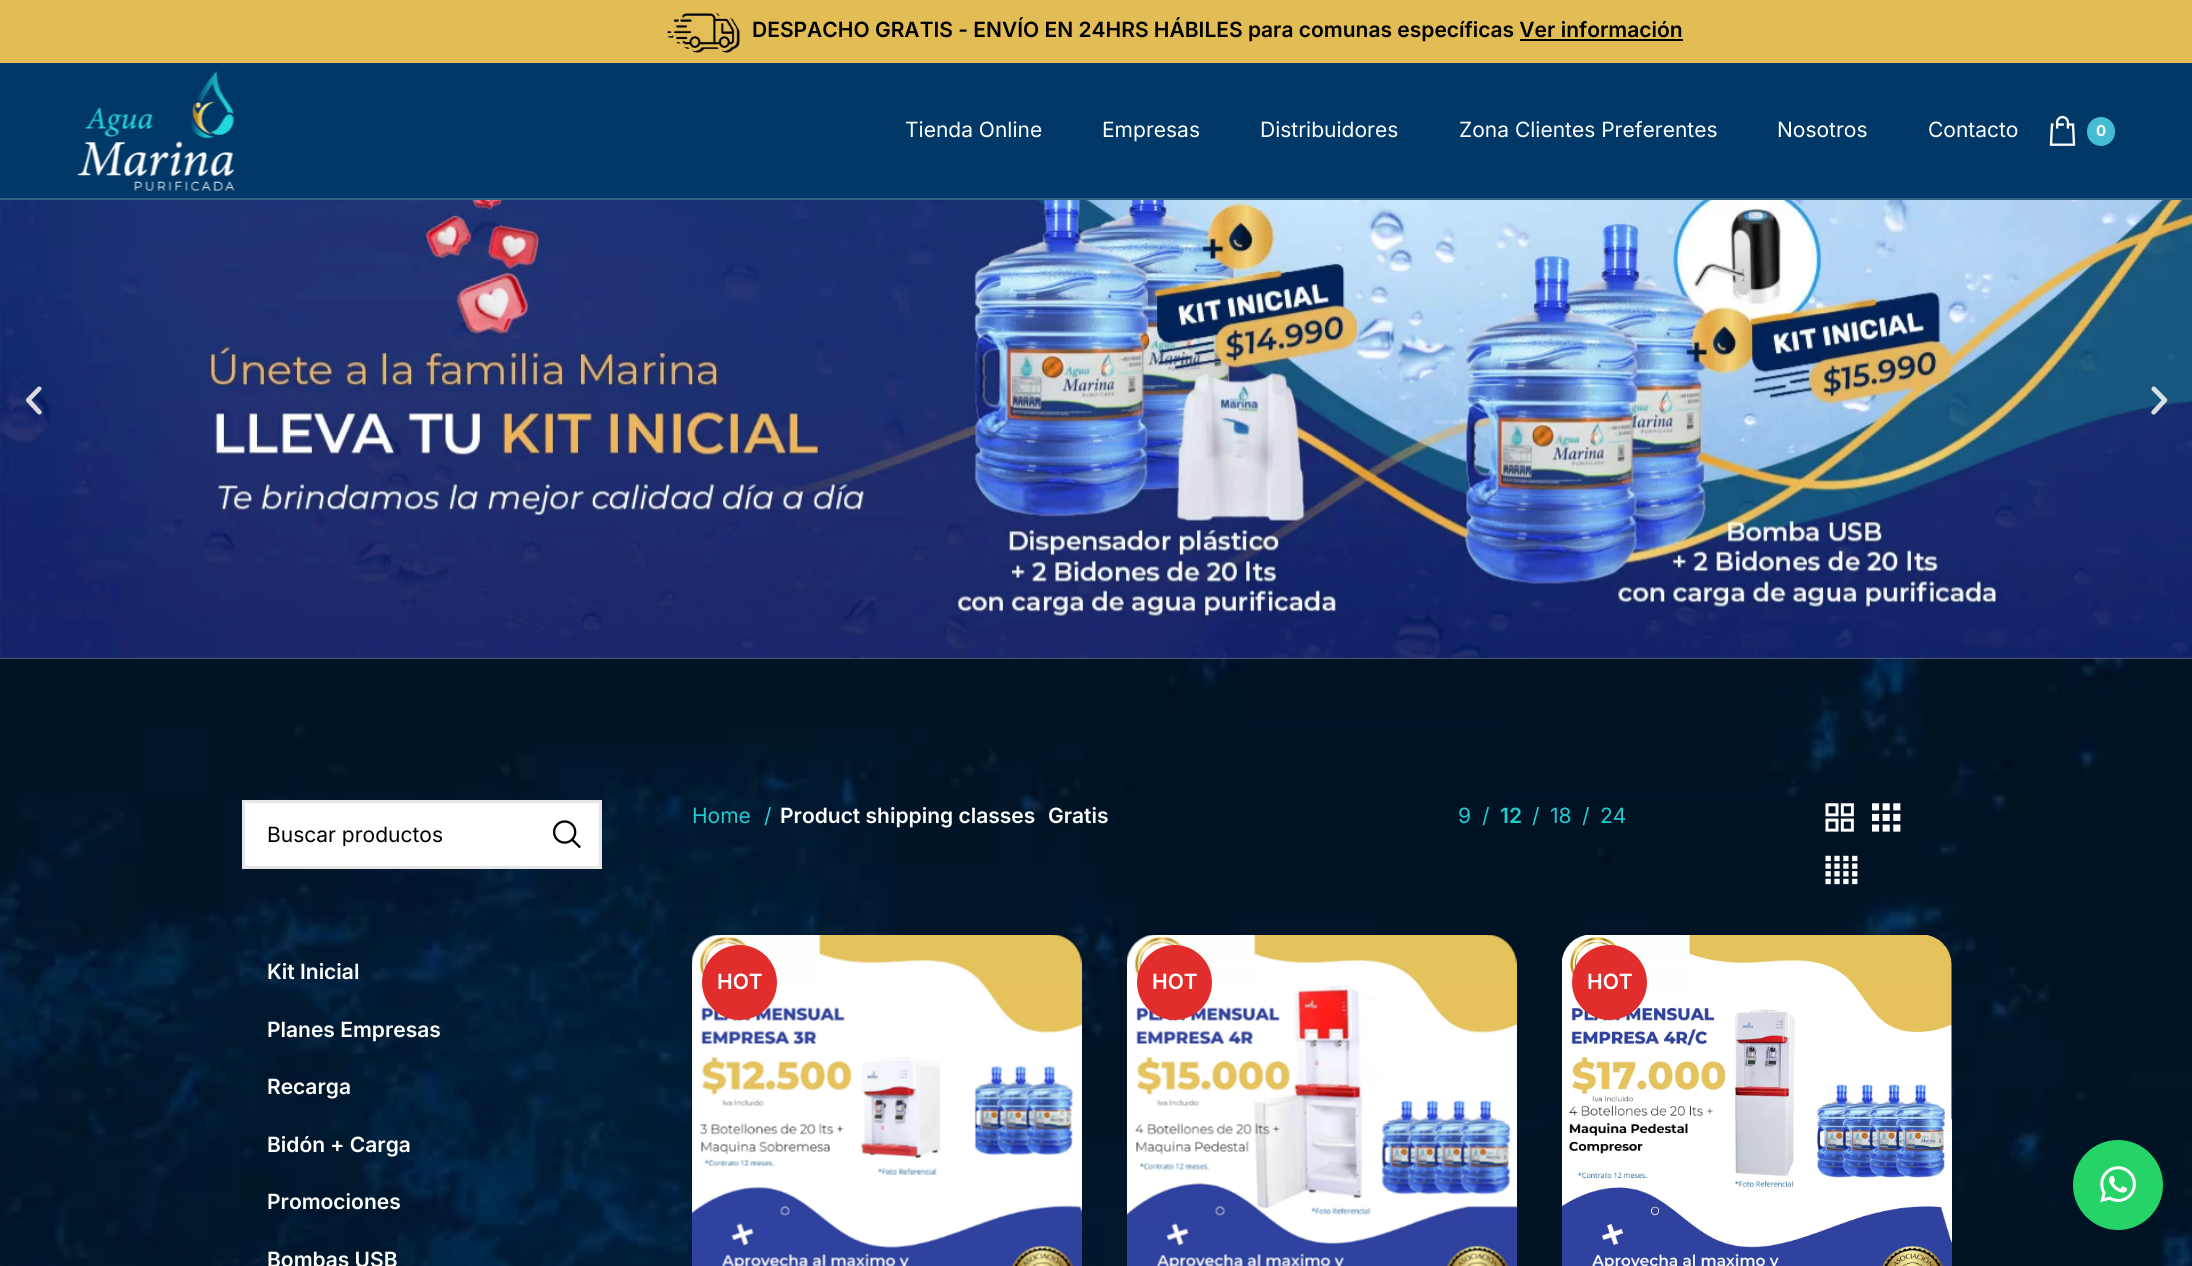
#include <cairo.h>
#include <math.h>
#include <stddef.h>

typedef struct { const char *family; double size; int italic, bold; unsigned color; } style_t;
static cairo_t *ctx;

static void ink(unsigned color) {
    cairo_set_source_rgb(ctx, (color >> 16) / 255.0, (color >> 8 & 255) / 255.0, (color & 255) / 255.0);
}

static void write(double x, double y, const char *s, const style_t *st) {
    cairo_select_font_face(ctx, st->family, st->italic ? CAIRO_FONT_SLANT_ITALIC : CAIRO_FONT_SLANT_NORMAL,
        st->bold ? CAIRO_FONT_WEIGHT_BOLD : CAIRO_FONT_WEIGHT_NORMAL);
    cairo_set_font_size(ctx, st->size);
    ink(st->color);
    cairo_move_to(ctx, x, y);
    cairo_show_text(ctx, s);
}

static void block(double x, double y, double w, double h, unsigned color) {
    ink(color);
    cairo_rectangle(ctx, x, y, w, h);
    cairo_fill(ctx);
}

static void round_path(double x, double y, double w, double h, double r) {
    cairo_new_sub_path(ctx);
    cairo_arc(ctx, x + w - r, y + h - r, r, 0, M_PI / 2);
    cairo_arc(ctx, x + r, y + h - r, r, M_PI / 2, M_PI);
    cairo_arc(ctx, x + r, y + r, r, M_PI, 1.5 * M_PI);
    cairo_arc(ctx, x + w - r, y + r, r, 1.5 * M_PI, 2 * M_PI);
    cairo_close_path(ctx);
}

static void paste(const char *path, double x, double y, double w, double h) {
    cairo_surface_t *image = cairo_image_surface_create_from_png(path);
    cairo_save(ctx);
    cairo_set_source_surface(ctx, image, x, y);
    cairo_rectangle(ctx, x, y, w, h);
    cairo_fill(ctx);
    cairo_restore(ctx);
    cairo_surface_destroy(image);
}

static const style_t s1 = {"Inter SemiBold", 21, 0, 0, 0x000000};
static const style_t s2 = {"Inter", 21, 0, 0, 0xffffff};
static const style_t s3 = {"Inter", 15, 0, 1, 0xffffff};
static const style_t s4 = {"Inter", 21, 0, 0, 0x000000};
static const style_t s5 = {"Inter SemiBold", 21, 0, 0, 0xffffff};
static const style_t s6 = {"Inter", 21, 0, 0, 0x25cad0};
static const style_t s7 = {"Inter SemiBold", 21, 0, 0, 0x25cad0};

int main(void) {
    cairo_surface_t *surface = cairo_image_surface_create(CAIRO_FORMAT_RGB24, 2192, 1266);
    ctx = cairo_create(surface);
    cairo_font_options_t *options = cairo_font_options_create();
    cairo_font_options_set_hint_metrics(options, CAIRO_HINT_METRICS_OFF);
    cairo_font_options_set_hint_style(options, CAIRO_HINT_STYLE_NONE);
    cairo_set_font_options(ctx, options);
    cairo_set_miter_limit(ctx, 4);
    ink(0xffffff);
    cairo_paint(ctx);
    block(0, 0, 2192, 63, 0xe2bd56);
    paste("pic1.png", 666, 12, 74, 41);
    write(752, 37, "DESPACHO GRATIS - ENVÍO EN 24HRS HÁBILES para comunas específicas Ver información", &s1);
    block(1520, 39, 163, 2, 0x000000);
    block(0, 63, 2192, 135, 0x003867);
    block(0, 198, 2192, 2, 0x336085);
    paste("pic2.png", 77, 71, 158, 120);
    write(905, 137, "Tienda Online", &s2);
    write(1102, 137, "Empresas", &s2);
    write(1260, 137, "Distribuidores", &s2);
    write(1459, 137, "Zona Clientes Preferentes", &s2);
    write(1777, 137, "Nosotros", &s2);
    write(1928, 137, "Contacto", &s2);
    paste("pic3.png", 2049, 115, 27, 31);
    ink(0x45bcd1);
    round_path(2087, 117, 28, 29, 14);
    cairo_fill(ctx);
    write(2096, 136, "0", &s3);
    paste("pic4.png", 0, 200, 2192, 459);
    paste("pic5.png", 26, 386, 16, 29);
    paste("pic6.png", 2151, 386, 17, 29);
    paste("pic7.png", 0, 658, 2192, 608);
    cairo_rectangle(ctx, 243.5, 801.5, 357, 66);
    cairo_fill_preserve(ctx);
    ink(0xe6e6e6);
    cairo_set_line_width(ctx, 3);
    cairo_stroke(ctx);
    cairo_save(ctx);
    cairo_rectangle(ctx, 267, 821, 263, 25);
    cairo_clip(ctx);
    write(267, 842, "Buscar productos", &s4);
    cairo_restore(ctx);
    paste("pic8.png", 553, 820, 28, 29);
    write(267, 979, "Kit Inicial", &s5);
    write(267, 1037, "Planes Empresas", &s5);
    write(267, 1094, "Recarga", &s5);
    write(267, 1152, "Bidón + Carga", &s5);
    write(267, 1209, "Promociones", &s5);
    write(267, 1267, "Bombas USB", &s5);
    write(692, 823, "Home", &s6);
    write(764, 823, "/", &s6);
    write(780, 823, "Product shipping classes", &s5);
    write(1048, 823, "Gratis", &s5);
    write(1458, 823, "9", &s6);
    write(1482, 823, "/", &s6);
    write(1500, 823, "12", &s7);
    write(1532, 823, "/", &s6);
    write(1550, 823, "18", &s6);
    write(1582, 823, "/", &s6);
    write(1600, 823, "24", &s6);
    paste("pic9.png", 1825, 803, 29, 29);
    paste("pic10.png", 1872, 803, 29, 29);
    paste("pic11.png", 1825, 855, 33, 30);
    paste("pic12.png", 692, 935, 390, 331);
    ink(0xe22d2d);
    cairo_arc(ctx, 739.5, 982.5, 37.5, 0, 2 * M_PI);
    cairo_fill(ctx);
    write(717, 989, "HOT", &s5);
    paste("pic13.png", 1127, 935, 390, 331);
    ink(0xe22d2d);
    cairo_arc(ctx, 1174.5, 982.5, 37.5, 0, 2 * M_PI);
    cairo_fill(ctx);
    write(1152, 989, "HOT", &s5);
    paste("pic14.png", 1562, 935, 390, 331);
    ink(0xe22d2d);
    cairo_arc(ctx, 1609.5, 982.5, 37.5, 0, 2 * M_PI);
    cairo_fill(ctx);
    write(1587, 989, "HOT", &s5);
    ink(0x25d366);
    cairo_new_path(ctx);
    cairo_arc(ctx, 2118, 1185, 45, 0, 2 * M_PI);
    cairo_fill(ctx);
    paste("pic15.png", 2100, 1166, 36, 37);
    cairo_surface_write_to_png(surface, "screenshot.png");
    cairo_font_options_destroy(options);
    cairo_destroy(ctx);
    cairo_surface_destroy(surface);
    return 0;
}
